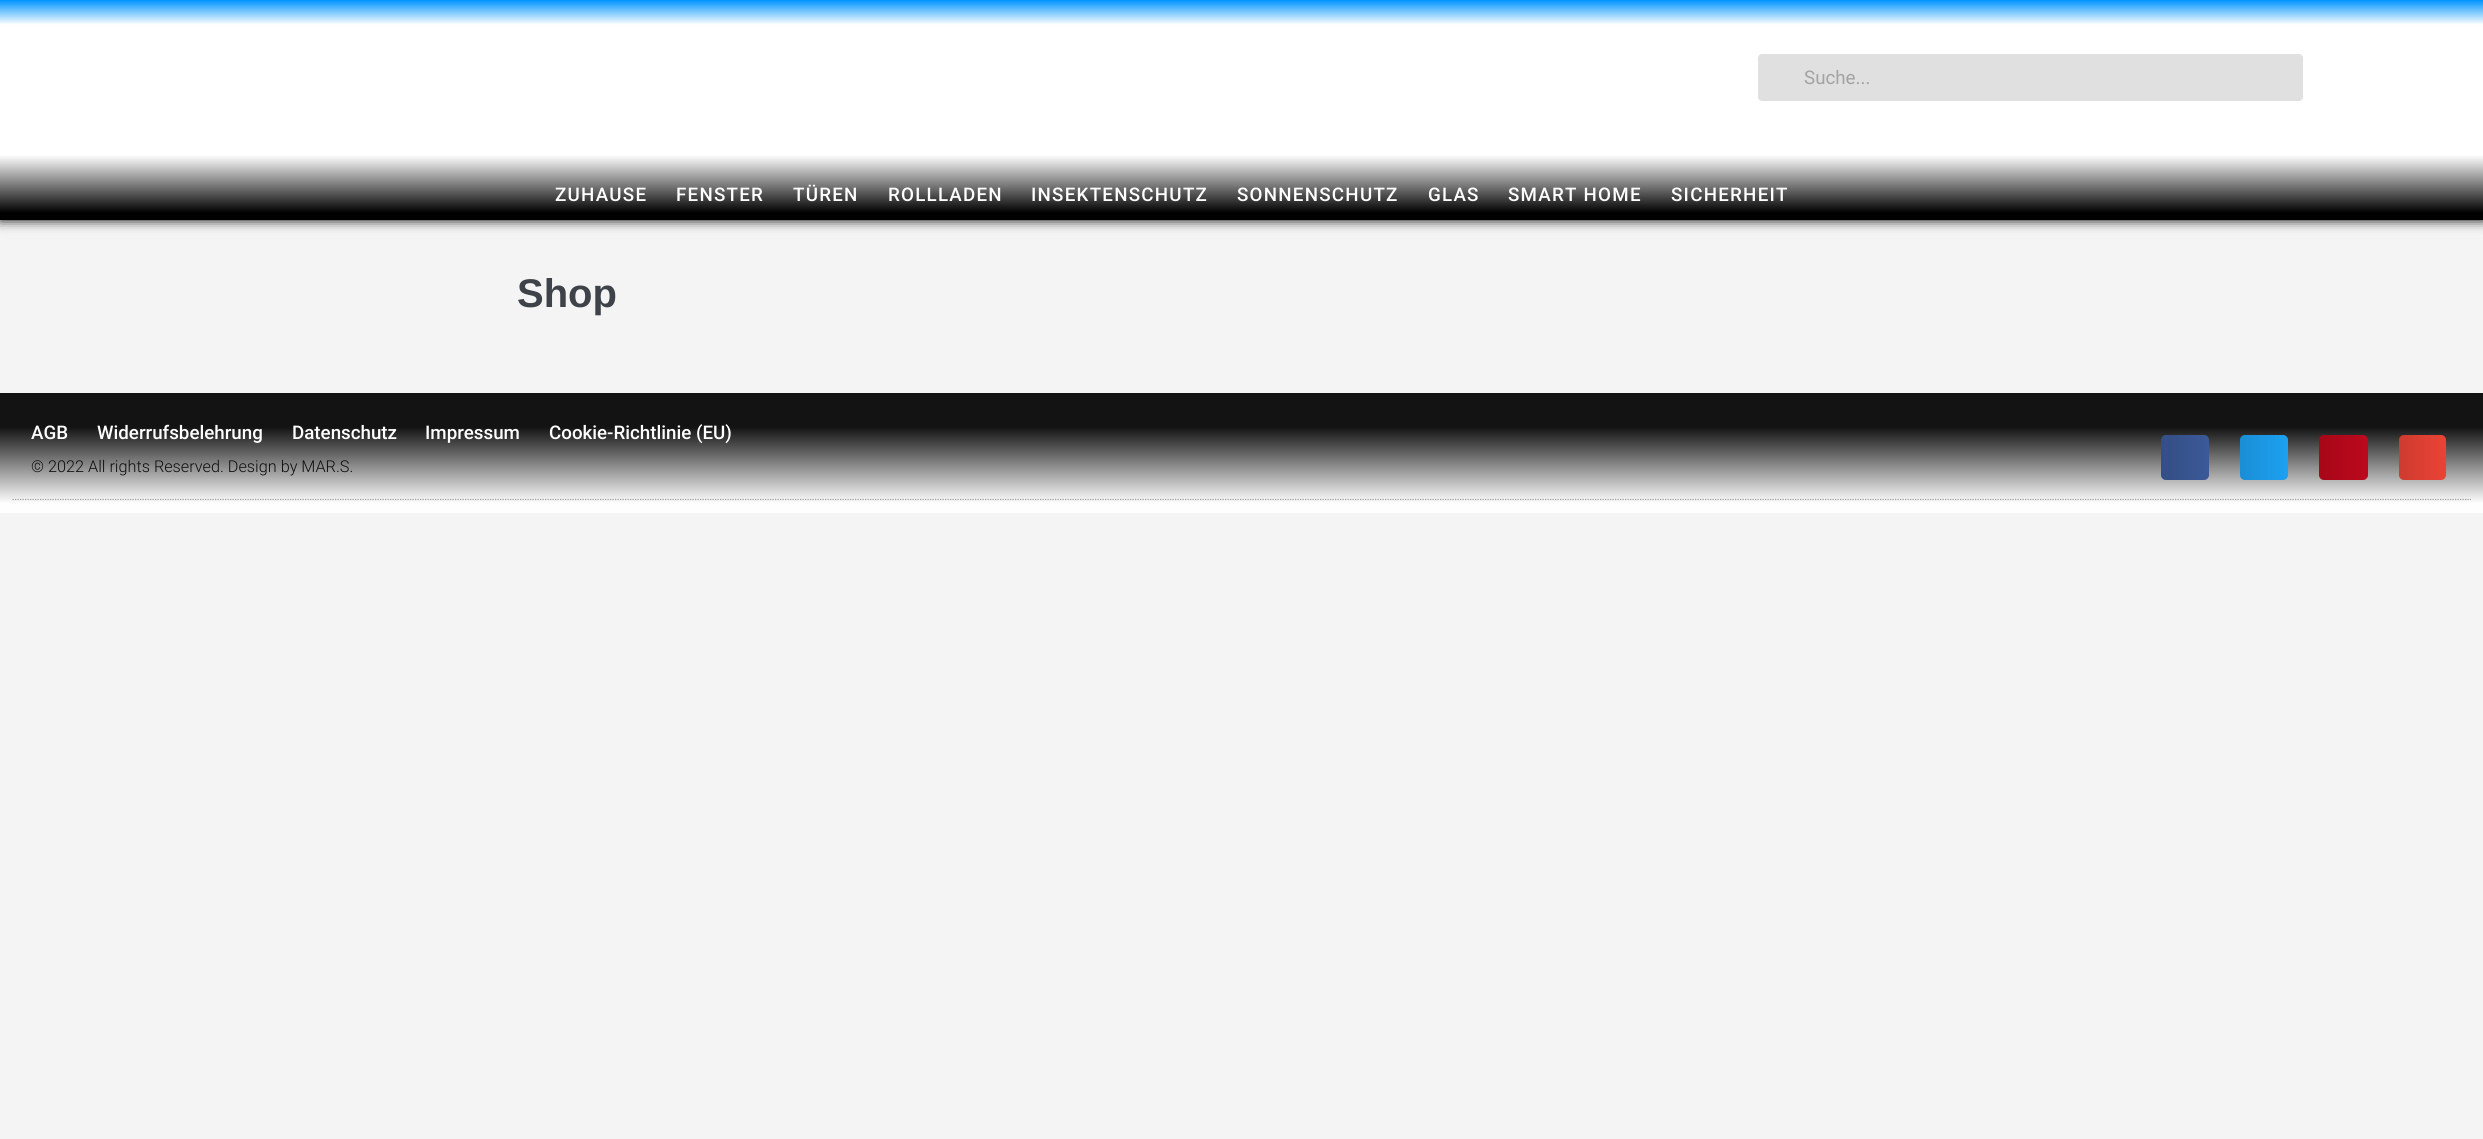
#include <cairo.h>
#include <math.h>
#include <stddef.h>

typedef struct { const char *family; double size; int italic, bold; unsigned color; } style_t;
static cairo_t *ctx;

static void ink(unsigned color) {
    cairo_set_source_rgb(ctx, (color >> 16) / 255.0, (color >> 8 & 255) / 255.0, (color & 255) / 255.0);
}

static void write(double x, double y, const char *s, const style_t *st) {
    cairo_select_font_face(ctx, st->family, st->italic ? CAIRO_FONT_SLANT_ITALIC : CAIRO_FONT_SLANT_NORMAL,
        st->bold ? CAIRO_FONT_WEIGHT_BOLD : CAIRO_FONT_WEIGHT_NORMAL);
    cairo_set_font_size(ctx, st->size);
    ink(st->color);
    cairo_move_to(ctx, x, y);
    cairo_show_text(ctx, s);
}

static void write_spaced(double x, double y, const char *s, double letter, double word) {
    cairo_move_to(ctx, x, y);
    while (*s) {
        char ch[5] = {0};
        int n = 0;
        do ch[n++] = *s++; while ((*s & 0xC0) == 0x80);
        cairo_show_text(ctx, ch);
        cairo_rel_move_to(ctx, letter + word * (*ch == ' '), 0);
    }
}

static void round_path(double x, double y, double w, double h, double r) {
    cairo_new_sub_path(ctx);
    cairo_arc(ctx, x + w - r, y + h - r, r, 0, M_PI / 2);
    cairo_arc(ctx, x + r, y + h - r, r, M_PI / 2, M_PI);
    cairo_arc(ctx, x + r, y + r, r, M_PI, 1.5 * M_PI);
    cairo_arc(ctx, x + w - r, y + r, r, 1.5 * M_PI, 2 * M_PI);
    cairo_close_path(ctx);
}

static void blur_box(double x, double y, double w, double h, double r, double blur, double alpha) {
    cairo_push_group_with_content(ctx, CAIRO_CONTENT_ALPHA);
    cairo_set_operator(ctx, CAIRO_OPERATOR_SOURCE);
    for (int i = 15; i >= -15 && fmin(w, h) + blur * i / 3 > 0; i -= 2) {
        double e = blur * i / 6;
        cairo_set_source_rgba(ctx, 0, 0, 0, alpha * erfc((i - 1) / 8.5) / 2);
        round_path(x - e, y - e, w + 2 * e, h + 2 * e, fmax(0, fmin(r + e + blur * .6, fmin(w, h) / 2 + e)));
        cairo_fill(ctx);
    }
    cairo_pattern_t *soft = cairo_pop_group(ctx);
    cairo_mask(ctx, soft);
    cairo_pattern_destroy(soft);
}

static const style_t s1 = {"Roboto", 18.75, 0, 0, 0xa3a3a3};
static const style_t s2 = {"Liberation Sans", 40, 0, 1, 0x3e4349};
static const style_t s3 = {"Roboto Medium", 18.75, 0, 0, 0xffffff};
static const style_t s4 = {"Roboto Light", 16.25, 0, 0, 0x0e0e0e};

int main(void) {
    cairo_surface_t *surface = cairo_image_surface_create(CAIRO_FORMAT_RGB24, 2483, 1139);
    ctx = cairo_create(surface);
    cairo_font_options_t *options = cairo_font_options_create();
    cairo_font_options_set_hint_metrics(options, CAIRO_HINT_METRICS_OFF);
    cairo_font_options_set_hint_style(options, CAIRO_HINT_STYLE_NONE);
    cairo_set_font_options(ctx, options);
    cairo_set_miter_limit(ctx, 4);
    cairo_pattern_t *gradient;
    ink(0xf4f4f4);
    cairo_paint(ctx);
    ink(0x000000);
    blur_box(0, 155, 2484, 65, 0, 6, 1);
    gradient = cairo_pattern_create_linear(1242, 0, 1242, 155);
    cairo_pattern_add_color_stop_rgba(gradient, 0, 0, 0.584, 1, 1);
    cairo_pattern_add_color_stop_rgba(gradient, 0.16, 1, 1, 1, 1);
    cairo_set_source(ctx, gradient);
    cairo_pattern_destroy(gradient);
    cairo_rectangle(ctx, 0, 0, 2483, 155);
    cairo_fill(ctx);
    ink(0xe0e0e0);
    round_path(1758, 54, 545, 47, 4);
    cairo_fill(ctx);
    write(1804, 84, "Suche...", &s1);
    gradient = cairo_pattern_create_linear(1242, 220, 1242, 155);
    cairo_pattern_add_color_stop_rgba(gradient, 0.11, 0, 0, 0, 1);
    cairo_pattern_add_color_stop_rgba(gradient, 1, 1, 1, 1, 1);
    cairo_set_source(ctx, gradient);
    cairo_pattern_destroy(gradient);
    cairo_rectangle(ctx, 0, 155, 2483, 65);
    cairo_fill(ctx);
    cairo_select_font_face(ctx, "Roboto Medium", CAIRO_FONT_SLANT_NORMAL, CAIRO_FONT_WEIGHT_NORMAL);
    ink(0xffffff);
    write_spaced(555, 201, "ZUHAUSE", 1.25, 0);
    write_spaced(676, 201, "FENSTER", 1.25, 0);
    write_spaced(793, 201, "TÜREN", 1.25, 0);
    write_spaced(888, 201, "ROLLLADEN", 1.25, 0);
    write_spaced(1031, 201, "INSEKTENSCHUTZ", 1.25, 0);
    write_spaced(1237, 201, "SONNENSCHUTZ", 1.25, 0);
    write_spaced(1428, 201, "GLAS", 1.25, 0);
    write_spaced(1508, 201, "SMART HOME", 1.25, 0);
    write_spaced(1671, 201, "SICHERHEIT", 1.25, 0);
    write(517, 307, "Shop", &s2);
    gradient = cairo_pattern_create_linear(1242, 392, 1242, 513);
    cairo_pattern_add_color_stop_rgba(gradient, 0.29, 0.075, 0.075, 0.075, 1);
    cairo_pattern_add_color_stop_rgba(gradient, 0.92, 0.996, 0.996, 0.996, 1);
    cairo_set_source(ctx, gradient);
    cairo_pattern_destroy(gradient);
    cairo_rectangle(ctx, 0, 393, 2483, 120);
    cairo_fill(ctx);
    cairo_new_path(ctx);
    cairo_move_to(ctx, 12.5, 499.5);
    cairo_line_to(ctx, 2471, 499.5);
    ink(0x9b9b9b);
    cairo_set_line_width(ctx, 1.2);
    cairo_set_dash(ctx, (double[]){1.25, 1.25}, 2, 0);
    cairo_stroke(ctx);
    write(31, 439, "AGB", &s3);
    write(97, 439, "Widerrufsbelehrung", &s3);
    write(292, 439, "Datenschutz", &s3);
    write(425, 439, "Impressum", &s3);
    write(549, 439, "Cookie-Richtlinie (EU)", &s3);
    write(31, 472, "© 2022 All rights Reserved. Design by MAR.S.", &s4);
    ink(0x3b5998);
    round_path(2161, 435, 48, 45, 5);
    cairo_fill(ctx);
    gradient = cairo_pattern_create_linear(2161, 458, 2209, 458);
    cairo_pattern_add_color_stop_rgba(gradient, 0, 0, 0, 0, 0.12);
    cairo_pattern_add_color_stop_rgba(gradient, 1, 0, 0, 0, 0);
    cairo_set_source(ctx, gradient);
    cairo_pattern_destroy(gradient);
    round_path(2161, 435, 48, 45, 5);
    cairo_fill(ctx);
    ink(0x1da1f2);
    round_path(2240, 435, 48, 45, 5);
    cairo_fill(ctx);
    gradient = cairo_pattern_create_linear(2240, 458, 2288, 458);
    cairo_pattern_add_color_stop_rgba(gradient, 0, 0, 0, 0, 0.12);
    cairo_pattern_add_color_stop_rgba(gradient, 1, 0, 0, 0, 0);
    cairo_set_source(ctx, gradient);
    cairo_pattern_destroy(gradient);
    round_path(2240, 435, 48, 45, 5);
    cairo_fill(ctx);
    ink(0xbd081c);
    round_path(2319, 435, 49, 45, 5);
    cairo_fill(ctx);
    gradient = cairo_pattern_create_linear(2319, 458, 2368, 458);
    cairo_pattern_add_color_stop_rgba(gradient, 0, 0, 0, 0, 0.12);
    cairo_pattern_add_color_stop_rgba(gradient, 1, 0, 0, 0, 0);
    cairo_set_source(ctx, gradient);
    cairo_pattern_destroy(gradient);
    round_path(2319, 435, 49, 45, 5);
    cairo_fill(ctx);
    ink(0xea4335);
    round_path(2399, 435, 47, 45, 5);
    cairo_fill(ctx);
    gradient = cairo_pattern_create_linear(2399, 458, 2446, 458);
    cairo_pattern_add_color_stop_rgba(gradient, 0, 0, 0, 0, 0.12);
    cairo_pattern_add_color_stop_rgba(gradient, 1, 0, 0, 0, 0);
    cairo_set_source(ctx, gradient);
    cairo_pattern_destroy(gradient);
    round_path(2399, 435, 47, 45, 5);
    cairo_fill(ctx);
    cairo_surface_write_to_png(surface, "screenshot.png");
    cairo_font_options_destroy(options);
    cairo_destroy(ctx);
    cairo_surface_destroy(surface);
    return 0;
}
